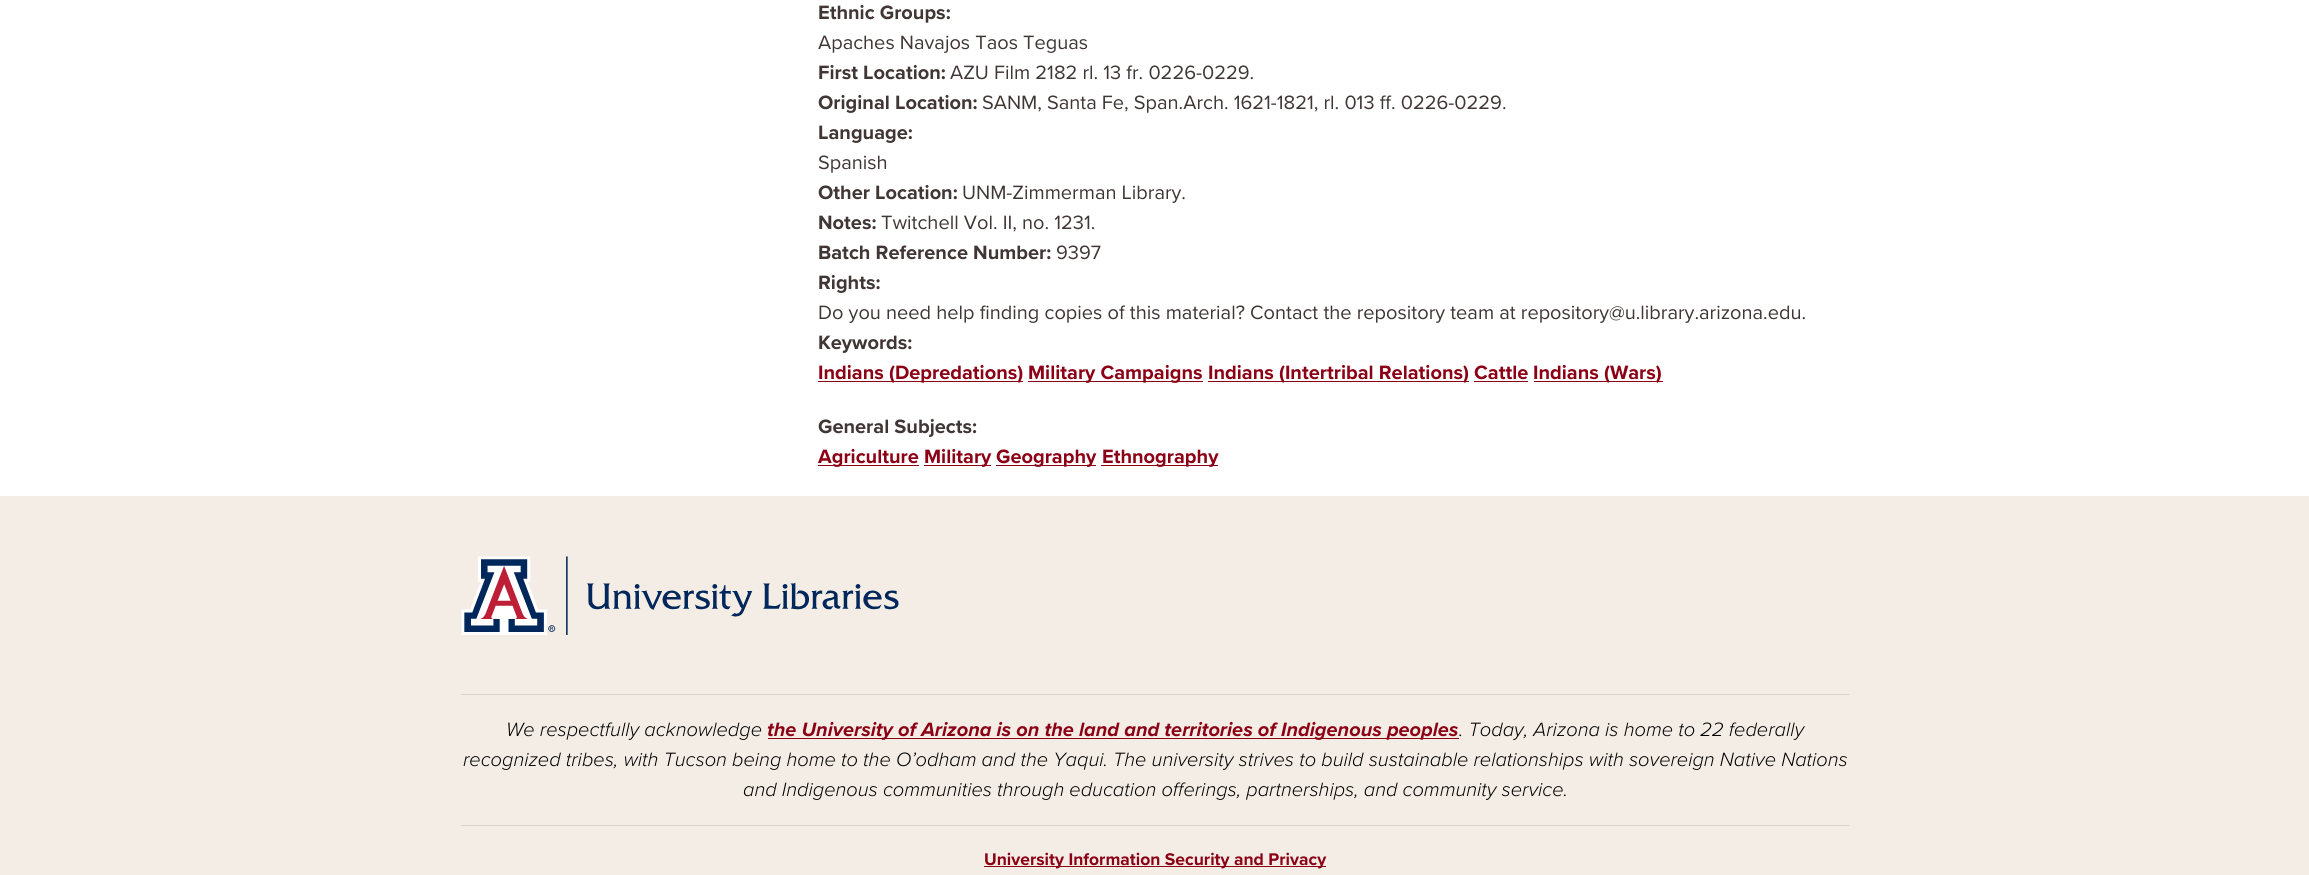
#include <cairo.h>
#include <math.h>
#include <stddef.h>

typedef struct { const char *family; double size; int italic, bold; unsigned color; } style_t;
static cairo_t *ctx;

static void ink(unsigned color) {
    cairo_set_source_rgb(ctx, (color >> 16) / 255.0, (color >> 8 & 255) / 255.0, (color & 255) / 255.0);
}

static void write(double x, double y, const char *s, const style_t *st) {
    cairo_select_font_face(ctx, st->family, st->italic ? CAIRO_FONT_SLANT_ITALIC : CAIRO_FONT_SLANT_NORMAL,
        st->bold ? CAIRO_FONT_WEIGHT_BOLD : CAIRO_FONT_WEIGHT_NORMAL);
    cairo_set_font_size(ctx, st->size);
    ink(st->color);
    cairo_move_to(ctx, x, y);
    cairo_show_text(ctx, s);
}

static void block(double x, double y, double w, double h, unsigned color) {
    ink(color);
    cairo_rectangle(ctx, x, y, w, h);
    cairo_fill(ctx);
}

static void paste(const char *path, double x, double y, double w, double h) {
    cairo_surface_t *image = cairo_image_surface_create_from_png(path);
    cairo_save(ctx);
    cairo_set_source_surface(ctx, image, x, y);
    cairo_rectangle(ctx, x, y, w, h);
    cairo_fill(ctx);
    cairo_restore(ctx);
    cairo_surface_destroy(image);
}

static const style_t s1 = {"Proxima Nova", 20, 0, 1, 0x403635};
static const style_t s2 = {"Proxima Nova", 20, 0, 0, 0x403635};
static const style_t s3 = {"Proxima Nova", 20, 0, 1, 0x8b0015};
static const style_t s4 = {"Proxima Nova Light", 20, 1, 0, 0x000000};
static const style_t s5 = {"Proxima Nova", 20, 1, 1, 0x8b0015};
static const style_t s6 = {"Proxima Nova", 17.5, 0, 1, 0x8b0015};

int main(void) {
    cairo_surface_t *surface = cairo_image_surface_create(CAIRO_FORMAT_RGB24, 2309, 875);
    ctx = cairo_create(surface);
    cairo_font_options_t *options = cairo_font_options_create();
    cairo_font_options_set_hint_metrics(options, CAIRO_HINT_METRICS_OFF);
    cairo_font_options_set_hint_style(options, CAIRO_HINT_STYLE_NONE);
    cairo_set_font_options(ctx, options);
    cairo_set_miter_limit(ctx, 4);
    ink(0xffffff);
    cairo_paint(ctx);
    write(818, 19, "Ethnic Groups:", &s1);
    write(818, 49, "Apaches Navajos Taos Teguas", &s2);
    write(818, 79, "First Location:", &s1);
    write(950, 79, "AZU Film 2182 rl. 13 fr. 0226-0229.", &s2);
    write(818, 109, "Original Location:", &s1);
    write(982, 109, "SANM, Santa Fe, Span.Arch. 1621-1821, rl. 013 ff. 0226-0229.", &s2);
    write(818, 139, "Language:", &s1);
    write(818, 169, "Spanish", &s2);
    write(818, 199, "Other Location:", &s1);
    write(962, 199, "UNM-Zimmerman Library.", &s2);
    write(818, 229, "Notes:", &s1);
    write(881, 229, "Twitchell Vol. II, no. 1231.", &s2);
    write(818, 259, "Batch Reference Number:", &s1);
    write(1056, 259, "9397", &s2);
    write(818, 289, "Rights:", &s1);
    write(818, 319, "Do you need help finding copies of this material? Contact the repository team at repository@u.library.arizona.edu.", &s2);
    write(818, 349, "Keywords:", &s1);
    block(818, 381, 205, 1, 0x8b0015);
    write(818, 379, "Indians (Depredations)", &s3);
    block(1028, 381, 175, 1, 0x8b0015);
    write(1028, 379, "Military Campaigns", &s3);
    block(1208, 381, 261, 1, 0x8b0015);
    write(1208, 379, "Indians (Intertribal Relations) Cattle", &s3);
    block(1534, 381, 129, 1, 0x8b0015);
    write(1533, 379, "Indians (Wars)", &s3);
    block(1474, 381, 54, 1, 0x8b0015);
    write(818, 433, "General Subjects:", &s1);
    block(818, 465, 101, 1, 0x8b0015);
    write(818, 463, "Agriculture", &s3);
    block(924, 465, 67, 1, 0x8b0015);
    write(924, 463, "Military", &s3);
    block(996, 465, 100, 1, 0x8b0015);
    write(996, 463, "Geography", &s3);
    block(1101, 465, 117, 1, 0x8b0015);
    write(1102, 463, "Ethnography", &s3);
    block(0, 496, 2309, 379, 0xf4ede5);
    paste("pic1.png", 461, 556, 438, 79);
    block(461, 694, 1388, 1, 0xdcd5ce);
    write(506, 736, "We respectfully acknowledge", &s4);
    block(768, 738, 691, 1, 0x8b0015);
    write(767, 736, "the University of Arizona is on the land and territories of Indigenous peoples", &s5);
    write(1459, 736, ". Today, Arizona is home to 22 federally", &s4);
    write(463, 766, "recognized tribes, with Tucson being home to the O’odham and the Yaqui. The university strives to build sustainable relationships with sovereign Native Nations", &s4);
    write(743, 796, "and Indigenous communities through education offerings, partnerships, and community service.", &s4);
    block(461, 825, 1388, 1, 0xdcd5ce);
    block(984, 866, 342, 1, 0x8b0015);
    write(984, 865, "University Information Security and Privacy", &s6);
    cairo_surface_write_to_png(surface, "screenshot.png");
    cairo_font_options_destroy(options);
    cairo_destroy(ctx);
    cairo_surface_destroy(surface);
    return 0;
}
